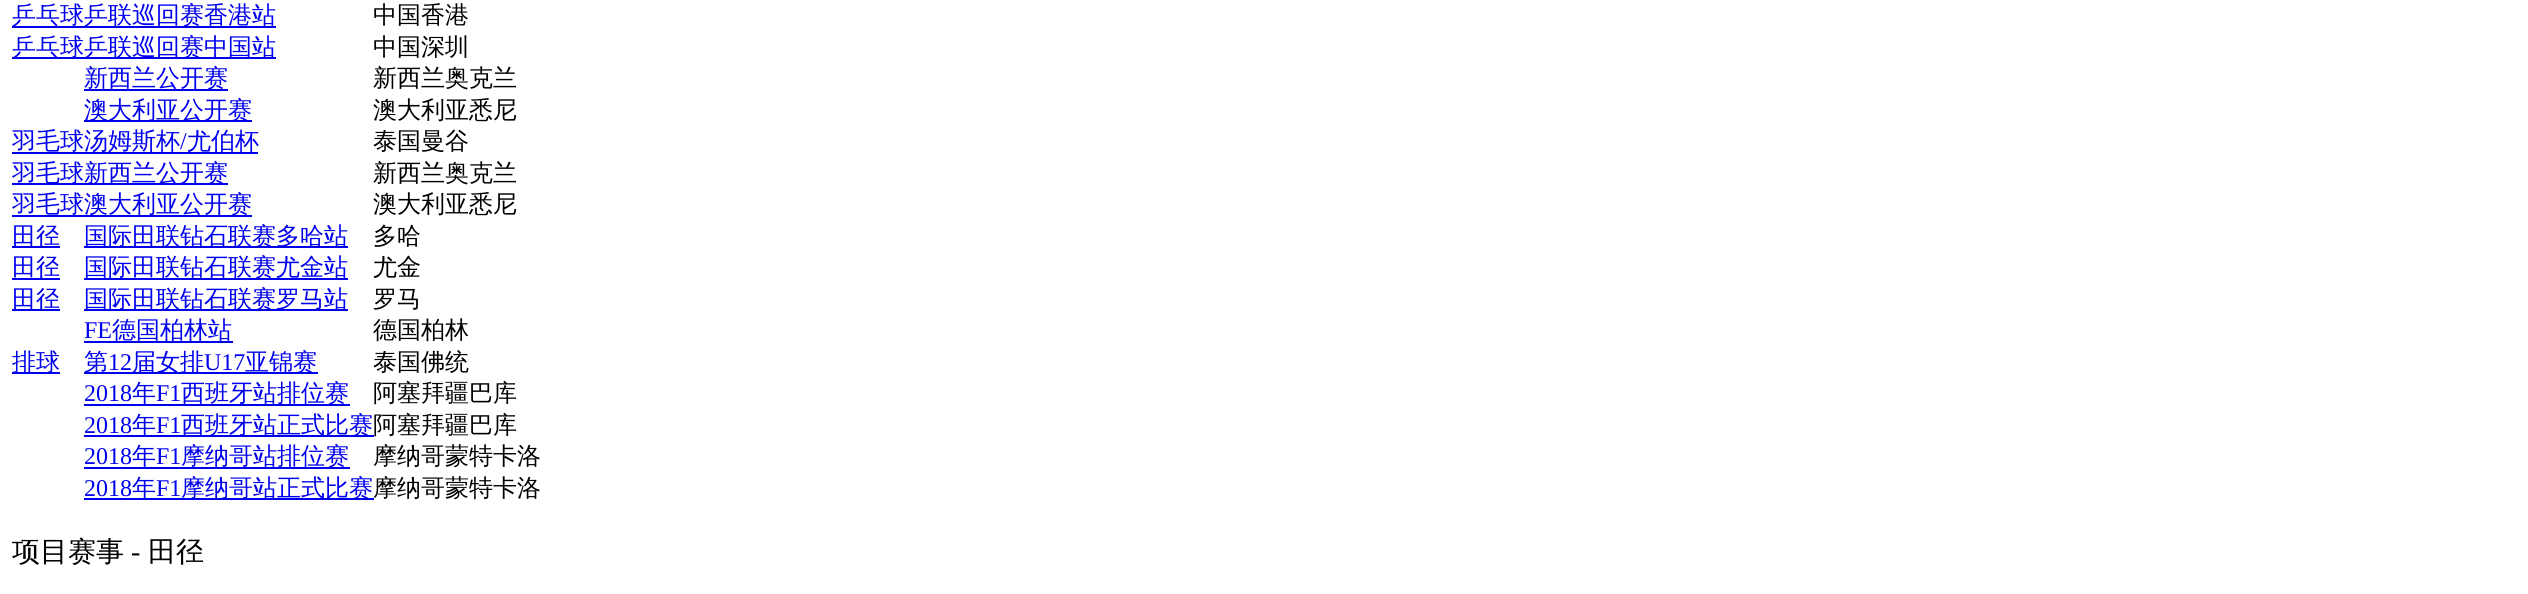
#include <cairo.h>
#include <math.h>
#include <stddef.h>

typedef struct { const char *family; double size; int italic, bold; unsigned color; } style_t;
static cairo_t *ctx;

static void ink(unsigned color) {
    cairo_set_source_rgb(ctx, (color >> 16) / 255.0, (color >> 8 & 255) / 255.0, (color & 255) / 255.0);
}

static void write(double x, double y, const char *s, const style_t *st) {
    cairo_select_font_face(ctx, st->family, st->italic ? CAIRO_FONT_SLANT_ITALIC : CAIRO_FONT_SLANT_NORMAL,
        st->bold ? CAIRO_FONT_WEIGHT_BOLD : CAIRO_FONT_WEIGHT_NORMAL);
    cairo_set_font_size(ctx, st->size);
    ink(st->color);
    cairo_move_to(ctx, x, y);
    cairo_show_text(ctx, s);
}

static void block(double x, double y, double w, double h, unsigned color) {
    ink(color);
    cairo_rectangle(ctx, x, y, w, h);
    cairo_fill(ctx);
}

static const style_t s1 = {"WenQuanYi Zen Hei Medium", 24, 0, 0, 0x0000ee};
static const style_t s2 = {"WenQuanYi Zen Hei Medium", 24, 0, 0, 0x000000};
static const style_t s3 = {"Liberation Serif", 24, 0, 0, 0x0000ee};
static const style_t s4 = {"WenQuanYi Zen Hei Medium", 28, 0, 0, 0x000000};
static const style_t s5 = {"Liberation Serif", 28, 0, 0, 0x000000};

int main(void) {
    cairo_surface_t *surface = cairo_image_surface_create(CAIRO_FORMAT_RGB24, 2528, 594);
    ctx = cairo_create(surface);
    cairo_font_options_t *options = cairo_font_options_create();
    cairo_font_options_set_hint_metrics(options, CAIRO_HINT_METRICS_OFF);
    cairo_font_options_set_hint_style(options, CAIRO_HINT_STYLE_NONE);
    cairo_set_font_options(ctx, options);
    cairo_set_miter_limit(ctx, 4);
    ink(0xffffff);
    cairo_paint(ctx);
    block(12, 26, 264, 2, 0x0000ee);
    write(12, 23, "乒乓球乒联巡回赛香港站", &s1);
    write(373, 23, "中国香港", &s2);
    block(12, 57, 264, 2, 0x0000ee);
    write(12, 55, "乒乓球乒联巡回赛中国站", &s1);
    write(373, 55, "中国深圳", &s2);
    block(84, 89, 144, 2, 0x0000ee);
    write(84, 86, "新西兰公开赛", &s1);
    write(373, 86, "新西兰奥克兰", &s2);
    block(84, 120, 168, 2, 0x0000ee);
    write(84, 118, "澳大利亚公开赛", &s1);
    write(373, 118, "澳大利亚悉尼", &s2);
    block(12, 152, 246, 2, 0x0000ee);
    write(12, 149, "羽毛球汤姆斯杯", &s1);
    write(180, 149, "/", &s3);
    write(187, 149, "尤伯杯", &s1);
    write(373, 149, "泰国曼谷", &s2);
    block(12, 183, 216, 2, 0x0000ee);
    write(12, 181, "羽毛球新西兰公开赛", &s1);
    write(373, 181, "新西兰奥克兰", &s2);
    block(12, 215, 240, 2, 0x0000ee);
    write(12, 212, "羽毛球澳大利亚公开赛", &s1);
    write(373, 212, "澳大利亚悉尼", &s2);
    block(12, 246, 48, 2, 0x0000ee);
    write(12, 244, "田径", &s1);
    block(84, 246, 264, 2, 0x0000ee);
    write(84, 244, "国际田联钻石联赛多哈站", &s1);
    write(373, 244, "多哈", &s2);
    block(12, 278, 48, 2, 0x0000ee);
    write(12, 275, "田径", &s1);
    block(84, 278, 264, 2, 0x0000ee);
    write(84, 275, "国际田联钻石联赛尤金站", &s1);
    write(373, 275, "尤金", &s2);
    block(12, 309, 48, 2, 0x0000ee);
    write(12, 307, "田径", &s1);
    block(84, 309, 264, 2, 0x0000ee);
    write(84, 307, "国际田联钻石联赛罗马站", &s1);
    write(373, 307, "罗马", &s2);
    write(84, 338, "FE", &s3);
    block(84, 341, 149, 2, 0x0000ee);
    write(112, 338, "德国柏林站", &s1);
    write(373, 338, "德国柏林", &s2);
    block(12, 372, 48, 2, 0x0000ee);
    write(12, 370, "排球", &s1);
    block(84, 372, 234, 2, 0x0000ee);
    write(84, 370, "第", &s1);
    write(108, 370, "12", &s3);
    write(132, 370, "届女排", &s1);
    write(204, 370, "U17", &s3);
    write(245, 370, "亚锦赛", &s1);
    write(373, 370, "泰国佛统", &s2);
    write(84, 401, "2018", &s3);
    block(84, 404, 266, 2, 0x0000ee);
    write(132, 401, "年", &s1);
    write(156, 401, "F1", &s3);
    write(181, 401, "西班牙站排位赛", &s1);
    write(373, 401, "阿塞拜疆巴库", &s2);
    write(84, 433, "2018", &s3);
    block(84, 435, 290, 2, 0x0000ee);
    write(132, 433, "年", &s1);
    write(156, 433, "F1", &s3);
    write(181, 433, "西班牙站正式比赛", &s1);
    write(373, 433, "阿塞拜疆巴库", &s2);
    write(84, 464, "2018", &s3);
    block(84, 467, 266, 2, 0x0000ee);
    write(132, 464, "年", &s1);
    write(156, 464, "F1", &s3);
    write(181, 464, "摩纳哥站排位赛", &s1);
    write(373, 464, "摩纳哥蒙特卡洛", &s2);
    write(84, 496, "2018", &s3);
    block(84, 498, 290, 2, 0x0000ee);
    write(132, 496, "年", &s1);
    write(156, 496, "F1", &s3);
    write(181, 496, "摩纳哥站正式比赛", &s1);
    write(373, 496, "摩纳哥蒙特卡洛", &s2);
    write(12, 561, "项目赛事", &s4);
    write(131, 561, "-", &s5);
    write(148, 561, "田径", &s4);
    cairo_surface_write_to_png(surface, "screenshot.png");
    cairo_font_options_destroy(options);
    cairo_destroy(ctx);
    cairo_surface_destroy(surface);
    return 0;
}
